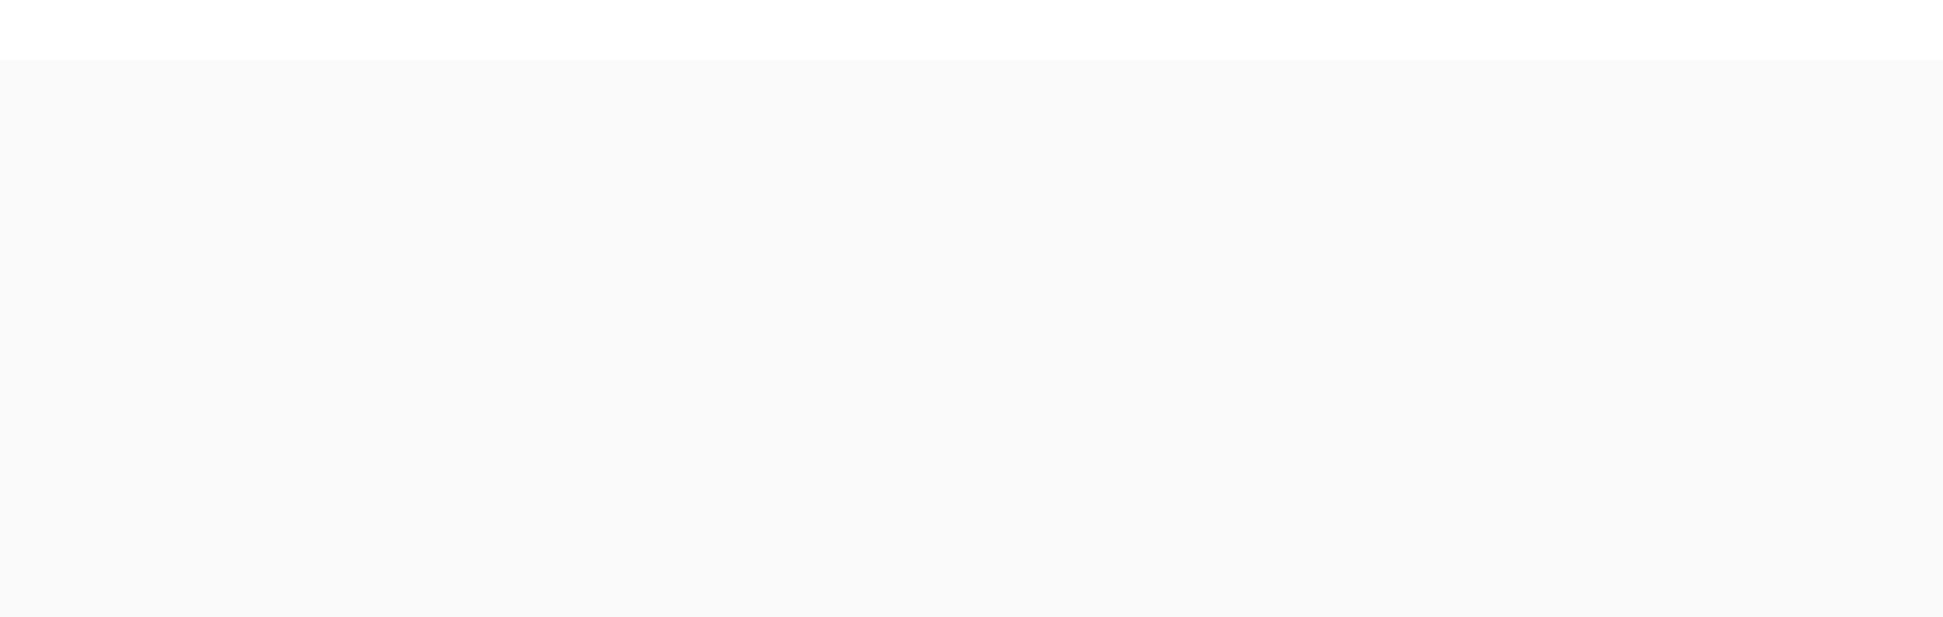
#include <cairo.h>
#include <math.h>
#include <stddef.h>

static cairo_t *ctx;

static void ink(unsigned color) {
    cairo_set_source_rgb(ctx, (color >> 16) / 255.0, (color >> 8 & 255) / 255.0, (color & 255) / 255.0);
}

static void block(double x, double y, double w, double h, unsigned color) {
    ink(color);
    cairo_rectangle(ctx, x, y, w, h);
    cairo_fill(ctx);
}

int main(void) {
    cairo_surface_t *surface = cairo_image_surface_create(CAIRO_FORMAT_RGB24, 1943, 617);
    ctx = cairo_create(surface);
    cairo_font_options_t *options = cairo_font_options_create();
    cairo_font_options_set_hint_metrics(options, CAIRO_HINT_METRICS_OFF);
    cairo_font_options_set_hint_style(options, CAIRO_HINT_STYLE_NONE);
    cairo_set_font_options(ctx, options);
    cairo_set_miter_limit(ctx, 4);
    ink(0xfafafa);
    cairo_paint(ctx);
    block(0, 0, 1943, 60, 0xffffff);
    cairo_surface_write_to_png(surface, "screenshot.png");
    cairo_font_options_destroy(options);
    cairo_destroy(ctx);
    cairo_surface_destroy(surface);
    return 0;
}
